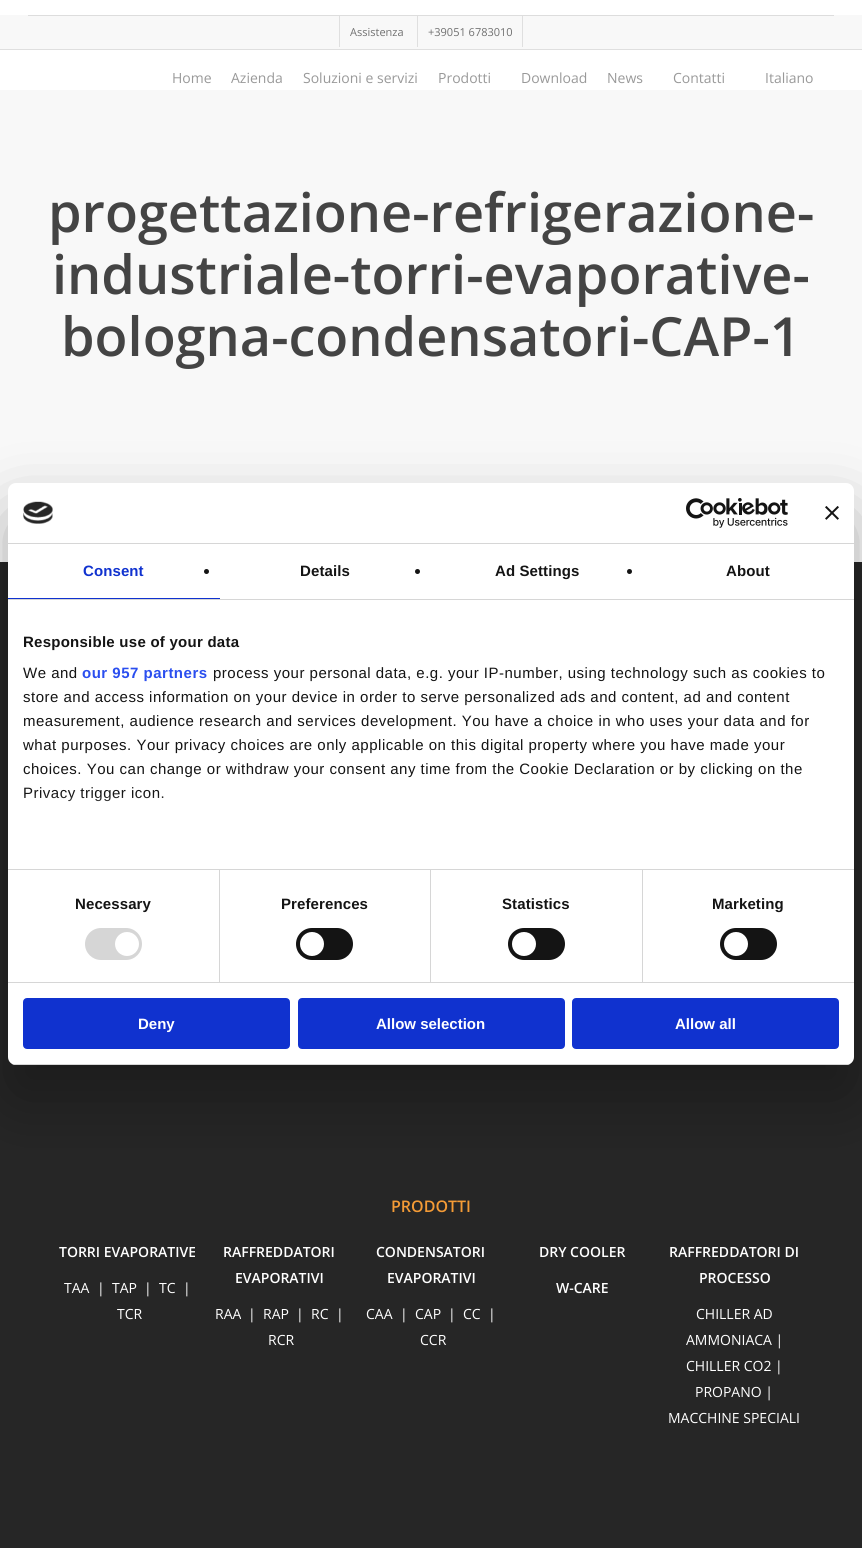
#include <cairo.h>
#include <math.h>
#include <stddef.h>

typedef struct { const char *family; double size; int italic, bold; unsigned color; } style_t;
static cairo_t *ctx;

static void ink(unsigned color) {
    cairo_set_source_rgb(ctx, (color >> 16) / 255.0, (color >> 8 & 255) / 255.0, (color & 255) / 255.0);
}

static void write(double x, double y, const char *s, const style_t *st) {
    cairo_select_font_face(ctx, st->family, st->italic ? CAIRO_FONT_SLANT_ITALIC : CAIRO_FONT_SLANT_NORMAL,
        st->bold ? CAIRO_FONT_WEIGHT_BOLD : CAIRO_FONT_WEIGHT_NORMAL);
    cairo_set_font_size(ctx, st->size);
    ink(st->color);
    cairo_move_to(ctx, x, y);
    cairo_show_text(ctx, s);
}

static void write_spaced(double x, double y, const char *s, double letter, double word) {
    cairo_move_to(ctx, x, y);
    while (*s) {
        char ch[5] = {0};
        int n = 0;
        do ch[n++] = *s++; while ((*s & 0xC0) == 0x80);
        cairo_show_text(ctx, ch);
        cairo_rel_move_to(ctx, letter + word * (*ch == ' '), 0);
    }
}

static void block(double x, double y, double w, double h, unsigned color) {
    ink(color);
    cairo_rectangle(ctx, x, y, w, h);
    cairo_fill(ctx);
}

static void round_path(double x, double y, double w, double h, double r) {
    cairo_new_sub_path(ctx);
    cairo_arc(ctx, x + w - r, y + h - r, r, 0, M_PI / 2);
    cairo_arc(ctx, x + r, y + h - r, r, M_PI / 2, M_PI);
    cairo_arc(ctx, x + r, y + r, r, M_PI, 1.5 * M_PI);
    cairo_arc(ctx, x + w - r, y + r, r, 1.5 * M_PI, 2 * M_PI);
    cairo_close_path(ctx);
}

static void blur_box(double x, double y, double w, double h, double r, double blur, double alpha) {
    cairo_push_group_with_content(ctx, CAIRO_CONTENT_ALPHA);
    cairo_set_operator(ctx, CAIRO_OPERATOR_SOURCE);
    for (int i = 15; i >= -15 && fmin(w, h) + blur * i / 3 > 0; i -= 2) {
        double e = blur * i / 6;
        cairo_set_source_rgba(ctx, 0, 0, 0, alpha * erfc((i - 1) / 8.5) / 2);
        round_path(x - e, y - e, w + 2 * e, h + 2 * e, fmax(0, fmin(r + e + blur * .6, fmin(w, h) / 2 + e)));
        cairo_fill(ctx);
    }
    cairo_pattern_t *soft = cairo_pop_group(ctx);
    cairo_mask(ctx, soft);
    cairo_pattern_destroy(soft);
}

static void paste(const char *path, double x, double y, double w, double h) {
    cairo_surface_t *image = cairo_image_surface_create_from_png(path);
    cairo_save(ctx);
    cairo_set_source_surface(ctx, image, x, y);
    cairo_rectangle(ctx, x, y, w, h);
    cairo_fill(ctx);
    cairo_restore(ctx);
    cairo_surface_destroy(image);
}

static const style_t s1 = {"Open Sans", 11, 0, 0, 0x707070};
static const style_t s2 = {"Open Sans", 14, 0, 0, 0x999999};
static const style_t s3 = {"Open Sans SemiBold", 54, 0, 0, 0x444444};
static const style_t s4 = {"Open Sans SemiBold", 16, 0, 0, 0xf49b36};
static const style_t s5 = {"Open Sans SemiBold", 14, 0, 0, 0xffffff};
static const style_t s6 = {"Open Sans", 14, 0, 0, 0xffffff};
static const style_t s7 = {"Liberation Sans", 15, 0, 1, 0xffffff};

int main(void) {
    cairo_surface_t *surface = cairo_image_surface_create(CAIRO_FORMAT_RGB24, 862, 1548);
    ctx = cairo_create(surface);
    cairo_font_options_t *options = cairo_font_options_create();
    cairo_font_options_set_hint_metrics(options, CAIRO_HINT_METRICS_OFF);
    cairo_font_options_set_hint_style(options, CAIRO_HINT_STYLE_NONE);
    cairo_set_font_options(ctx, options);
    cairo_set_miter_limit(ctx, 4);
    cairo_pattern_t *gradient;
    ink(0xffffff);
    cairo_paint(ctx);
    block(0, 15, 862, 34, 0xf8f8f8);
    block(0, 49, 862, 1, 0xdfdfdf);
    block(28, 15, 806, 1, 0xdddddd);
    block(339, 16, 1, 31, 0xdfdfdf);
    write(350, 36, "Assistenza", &s1);
    block(522, 16, 1, 31, 0xdfdfdf);
    block(417, 16, 1, 31, 0xdfdfdf);
    write(428, 36, "+39051 6783010", &s1);
    write(172, 83, "Home", &s2);
    write(231, 83, "Azienda", &s2);
    write(303, 83, "Soluzioni e servizi", &s2);
    write(438, 83, "Prodotti", &s2);
    write(521, 83, "Download", &s2);
    write(607, 83, "News", &s2);
    write(673, 83, "Contatti", &s2);
    write(765, 83, "Italiano", &s2);
    block(0, 90, 862, 472, 0xf8f8f8);
    write(48, 232, "progettazione-refrigerazione-", &s3);
    write(52, 294, "industriale-torri-evaporative-", &s3);
    write(61, 356, "bologna-condensatori-CAP-1", &s3);
    block(0, 562, 862, 986, 0x262626);
    write(391, 1212, "PRODOTTI", &s4);
    write(59, 1257, "TORRI EVAPORATIVE", &s5);
    write(64, 1293, "TAA", &s6);
    write(97, 1293, "|", &s6);
    write(112, 1293, "TAP", &s6);
    write(144, 1293, "|", &s6);
    write(159, 1293, "TC", &s6);
    write(183, 1293, "|", &s6);
    write(117, 1319, "TCR", &s6);
    write(223, 1257, "RAFFREDDATORI", &s5);
    write(235, 1283, "EVAPORATIVI", &s5);
    write(215, 1319, "RAA", &s6);
    write(248, 1319, "|", &s6);
    write(263, 1319, "RAP", &s6);
    write(296, 1319, "|", &s6);
    write(311, 1319, "RC", &s6);
    write(336, 1319, "|", &s6);
    write(268, 1345, "RCR", &s6);
    write(376, 1257, "CONDENSATORI", &s5);
    write(387, 1283, "EVAPORATIVI", &s5);
    write(366, 1319, "CAA", &s6);
    write(400, 1319, "|", &s6);
    write(415, 1319, "CAP", &s6);
    write(448, 1319, "|", &s6);
    write(463, 1319, "CC", &s6);
    write(488, 1319, "|", &s6);
    write(420, 1345, "CCR", &s6);
    write(539, 1257, "DRY COOLER", &s5);
    write(556, 1293, "W-CARE", &s5);
    write(669, 1257, "RAFFREDDATORI DI", &s5);
    write(699, 1283, "PROCESSO", &s5);
    write(696, 1319, "CHILLER AD", &s6);
    write(686, 1345, "AMMONIACA |", &s6);
    write(686, 1371, "CHILLER CO2 |", &s6);
    write(695, 1397, "PROPANO |", &s6);
    write(668, 1423, "MACCHINE SPECIALI", &s6);
    ink(0x000000);
    blur_box(8, 515, 846, 582, 8, 34, 0.3);
    ink(0xffffff);
    round_path(8, 483, 846, 582, 8);
    cairo_fill(ctx);
    block(8, 543, 846, 1, 0xd6d6d6);
    paste("pic1.png", 23, 501, 30, 23);
    paste("pic2.png", 686, 498, 102, 30);
    paste("pic3.png", 825, 506, 14, 14);
    block(8, 599, 846, 1, 0xd6d6d6);
    block(8, 598, 212, 1, 0x1032cf);
    cairo_select_font_face(ctx, "Liberation Sans", CAIRO_FONT_SLANT_NORMAL, CAIRO_FONT_WEIGHT_BOLD);
    cairo_set_font_size(ctx, 15);
    write_spaced(83, 576, "Consent", 0.1, 0);
    ink(0x141414);
    cairo_new_path(ctx);
    cairo_arc(ctx, 206.5, 571.5, 2.5, 0, 2 * M_PI);
    cairo_fill(ctx);
    write_spaced(300, 576, "Details", 0.1, 0);
    cairo_new_path(ctx);
    cairo_arc(ctx, 417.5, 571.5, 2.5, 0, 2 * M_PI);
    cairo_fill(ctx);
    write_spaced(495, 576, "Ad Settings", 0.1, 0);
    cairo_new_path(ctx);
    cairo_arc(ctx, 629.5, 571.5, 2.5, 0, 2 * M_PI);
    cairo_fill(ctx);
    write_spaced(726, 576, "About", 0.1, 0);
    block(8, 869, 846, 1, 0xd6d6d6);
    ink(0x141414);
    write_spaced(23, 647, "Responsible use of your data", 0.25, 0);
    cairo_select_font_face(ctx, "Liberation Sans", CAIRO_FONT_SLANT_NORMAL, CAIRO_FONT_WEIGHT_NORMAL);
    write_spaced(23, 678, "We and", 0.5, 0);
    cairo_select_font_face(ctx, "Liberation Sans", CAIRO_FONT_SLANT_NORMAL, CAIRO_FONT_WEIGHT_BOLD);
    ink(0x2a4eef);
    write_spaced(82, 678, "our 957 partners", 0.5, 0);
    cairo_select_font_face(ctx, "Liberation Sans", CAIRO_FONT_SLANT_NORMAL, CAIRO_FONT_WEIGHT_NORMAL);
    ink(0x141414);
    write_spaced(213, 678, "process your personal data, e.g. your IP-number, using technology such as cookies to", 0.5, 0);
    write_spaced(23, 702, "store and access information on your device in order to serve personalized ads and content, ad and content", 0.5, 0);
    write_spaced(23, 726, "measurement, audience research and services development. You have a choice in who uses your data and for", 0.5, 0);
    write_spaced(23, 750, "what purposes. Your privacy choices are only applicable on this digital property where you have made your", 0.5, 0);
    write_spaced(23, 774, "choices. You can change or withdraw your consent any time from the Cookie Declaration or by clicking on the", 0.5, 0);
    write_spaced(23, 798, "Privacy trigger icon.", 0.5, 0);
    gradient = cairo_pattern_create_linear(425, 869, 425, 794);
    cairo_pattern_add_color_stop_rgba(gradient, 0, 1, 1, 1, 1);
    cairo_pattern_add_color_stop_rgba(gradient, 0.5, 1, 1, 1, 0.8);
    cairo_pattern_add_color_stop_rgba(gradient, 1, 1, 1, 1, 0);
    cairo_set_source(ctx, gradient);
    cairo_pattern_destroy(gradient);
    cairo_rectangle(ctx, 24, 795, 140, 7);
    cairo_fill(ctx);
    block(8, 982, 846, 1, 0xd6d6d6);
    block(219, 870, 1, 112, 0xd6d6d6);
    cairo_select_font_face(ctx, "Liberation Sans", CAIRO_FONT_SLANT_NORMAL, CAIRO_FONT_WEIGHT_BOLD);
    ink(0x141414);
    write_spaced(75, 909, "Necessary", 0.1, 0);
    ink(0xd6d6d6);
    round_path(85, 928, 57, 32, 16);
    cairo_fill(ctx);
    ink(0xffffff);
    cairo_arc(ctx, 127, 944, 12, 0, 2 * M_PI);
    cairo_fill(ctx);
    block(430, 870, 1, 112, 0xd6d6d6);
    ink(0x141414);
    write_spaced(281, 909, "Preferences", 0.1, 0);
    round_path(296, 928, 57, 32, 16);
    cairo_fill(ctx);
    ink(0xffffff);
    cairo_arc(ctx, 312, 944, 12, 0, 2 * M_PI);
    cairo_fill(ctx);
    block(642, 870, 1, 112, 0xd6d6d6);
    ink(0x141414);
    write_spaced(502, 909, "Statistics", 0.1, 0);
    round_path(508, 928, 57, 32, 16);
    cairo_fill(ctx);
    ink(0xffffff);
    cairo_arc(ctx, 524, 944, 12, 0, 2 * M_PI);
    cairo_fill(ctx);
    ink(0x141414);
    write_spaced(712, 909, "Marketing", 0.1, 0);
    round_path(720, 928, 57, 32, 16);
    cairo_fill(ctx);
    ink(0xffffff);
    cairo_arc(ctx, 736, 944, 12, 0, 2 * M_PI);
    cairo_fill(ctx);
    cairo_save(ctx);
    round_path(8, 483, 846, 582, 8);
    cairo_clip(ctx);
    block(8, 1064, 846, 1, 0xd6d6d6);
    cairo_restore(ctx);
    ink(0x1032cf);
    round_path(24, 999, 265, 49, 3);
    cairo_fill_preserve(ctx);
    cairo_stroke(ctx);
    write(138, 1029, "Deny", &s7);
    ink(0x1032cf);
    round_path(299, 999, 265, 49, 3);
    cairo_fill_preserve(ctx);
    cairo_stroke(ctx);
    write(376, 1029, "Allow selection", &s7);
    ink(0x1032cf);
    round_path(573, 999, 265, 49, 3);
    cairo_fill_preserve(ctx);
    cairo_stroke(ctx);
    write(675, 1029, "Allow all", &s7);
    cairo_surface_write_to_png(surface, "screenshot.png");
    cairo_font_options_destroy(options);
    cairo_destroy(ctx);
    cairo_surface_destroy(surface);
    return 0;
}
